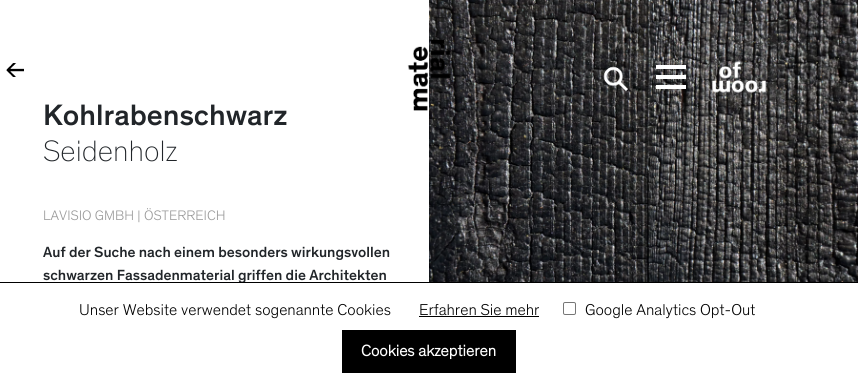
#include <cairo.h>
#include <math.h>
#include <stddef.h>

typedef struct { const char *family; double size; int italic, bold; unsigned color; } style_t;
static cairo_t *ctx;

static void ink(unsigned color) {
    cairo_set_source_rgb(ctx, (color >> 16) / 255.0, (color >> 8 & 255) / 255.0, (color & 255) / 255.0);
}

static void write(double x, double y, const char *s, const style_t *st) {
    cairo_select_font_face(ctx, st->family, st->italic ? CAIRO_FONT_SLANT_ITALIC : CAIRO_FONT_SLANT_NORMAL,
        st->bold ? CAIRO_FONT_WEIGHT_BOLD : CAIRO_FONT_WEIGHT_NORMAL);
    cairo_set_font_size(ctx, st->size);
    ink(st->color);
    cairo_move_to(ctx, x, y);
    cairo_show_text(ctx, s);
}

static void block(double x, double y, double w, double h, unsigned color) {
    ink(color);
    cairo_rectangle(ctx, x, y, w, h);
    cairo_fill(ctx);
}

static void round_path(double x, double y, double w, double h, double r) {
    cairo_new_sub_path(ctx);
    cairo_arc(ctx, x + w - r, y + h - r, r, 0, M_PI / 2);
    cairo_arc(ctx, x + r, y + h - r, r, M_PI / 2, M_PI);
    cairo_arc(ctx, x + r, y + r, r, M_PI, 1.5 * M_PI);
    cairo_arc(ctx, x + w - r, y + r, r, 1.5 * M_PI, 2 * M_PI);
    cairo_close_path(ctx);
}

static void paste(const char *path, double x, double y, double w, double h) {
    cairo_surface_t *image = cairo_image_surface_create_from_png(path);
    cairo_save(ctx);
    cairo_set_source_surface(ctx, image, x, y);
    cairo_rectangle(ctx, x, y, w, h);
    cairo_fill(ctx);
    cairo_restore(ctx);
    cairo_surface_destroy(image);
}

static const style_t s1 = {"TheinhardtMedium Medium", 30, 0, 0, 0x212529};
static const style_t s2 = {"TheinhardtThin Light", 30, 0, 0, 0x212529};
static const style_t s3 = {"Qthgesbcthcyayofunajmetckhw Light", 14, 0, 0, 0x999999};
static const style_t s4 = {"TheinhardtMedium Medium", 15, 0, 0, 0x212529};
static const style_t s5 = {"Qthgesbcthcyayofunajmetckhw Light", 16, 0, 0, 0x000000};
static const style_t s6 = {"Qthgesbcthcyayofunajmetckhw", 16, 0, 1, 0xffffff};

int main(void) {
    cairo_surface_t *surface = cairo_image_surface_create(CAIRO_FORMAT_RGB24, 858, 383);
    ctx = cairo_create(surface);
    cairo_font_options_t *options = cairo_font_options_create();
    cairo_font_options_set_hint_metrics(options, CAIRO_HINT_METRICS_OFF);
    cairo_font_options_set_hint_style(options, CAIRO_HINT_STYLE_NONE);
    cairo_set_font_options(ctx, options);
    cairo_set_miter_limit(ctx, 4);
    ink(0xffffff);
    cairo_paint(ctx);
    paste("pic5.png", 429, 0, 429, 282);
    paste("pic1.png", 603, 66, 26, 26);
    block(656, 75, 30, 4, 0xffffff);
    block(656, 65, 30, 4, 0xffffff);
    block(656, 85, 30, 4, 0xffffff);
    paste("pic2.png", 712, 61, 54, 32);
    paste("pic3.png", 407, 39, 44, 72);
    paste("pic4.png", 6, 63, 18, 14);
    write(43, 125, "Kohlrabenschwarz", &s1);
    write(43, 161, "Seidenholz", &s2);
    write(43, 220, "LAVISIO GMBH | ÖSTERREICH", &s3);
    write(43, 257, "Auf der Suche nach einem besonders wirkungsvollen", &s4);
    write(43, 280, "schwarzen Fassadenmaterial griffen die Architekten", &s4);
    block(0, 282, 858, 1, 0x000000);
    write(79, 315, "Unser Website verwendet sogenannte Cookies", &s5);
    write(419, 315, "Erfahren Sie mehr", &s5);
    block(419, 316, 120, 1, 0x000000);
    round_path(563.5, 302.5, 12, 12, 1.5);
    ink(0x767676);
    cairo_set_line_width(ctx, 1);
    cairo_stroke(ctx);
    write(585, 315, "Google Analytics Opt-Out", &s5);
    block(342, 330, 174, 43, 0x000000);
    write(361, 356, "Cookies akzeptieren", &s6);
    cairo_surface_write_to_png(surface, "screenshot.png");
    cairo_font_options_destroy(options);
    cairo_destroy(ctx);
    cairo_surface_destroy(surface);
    return 0;
}
